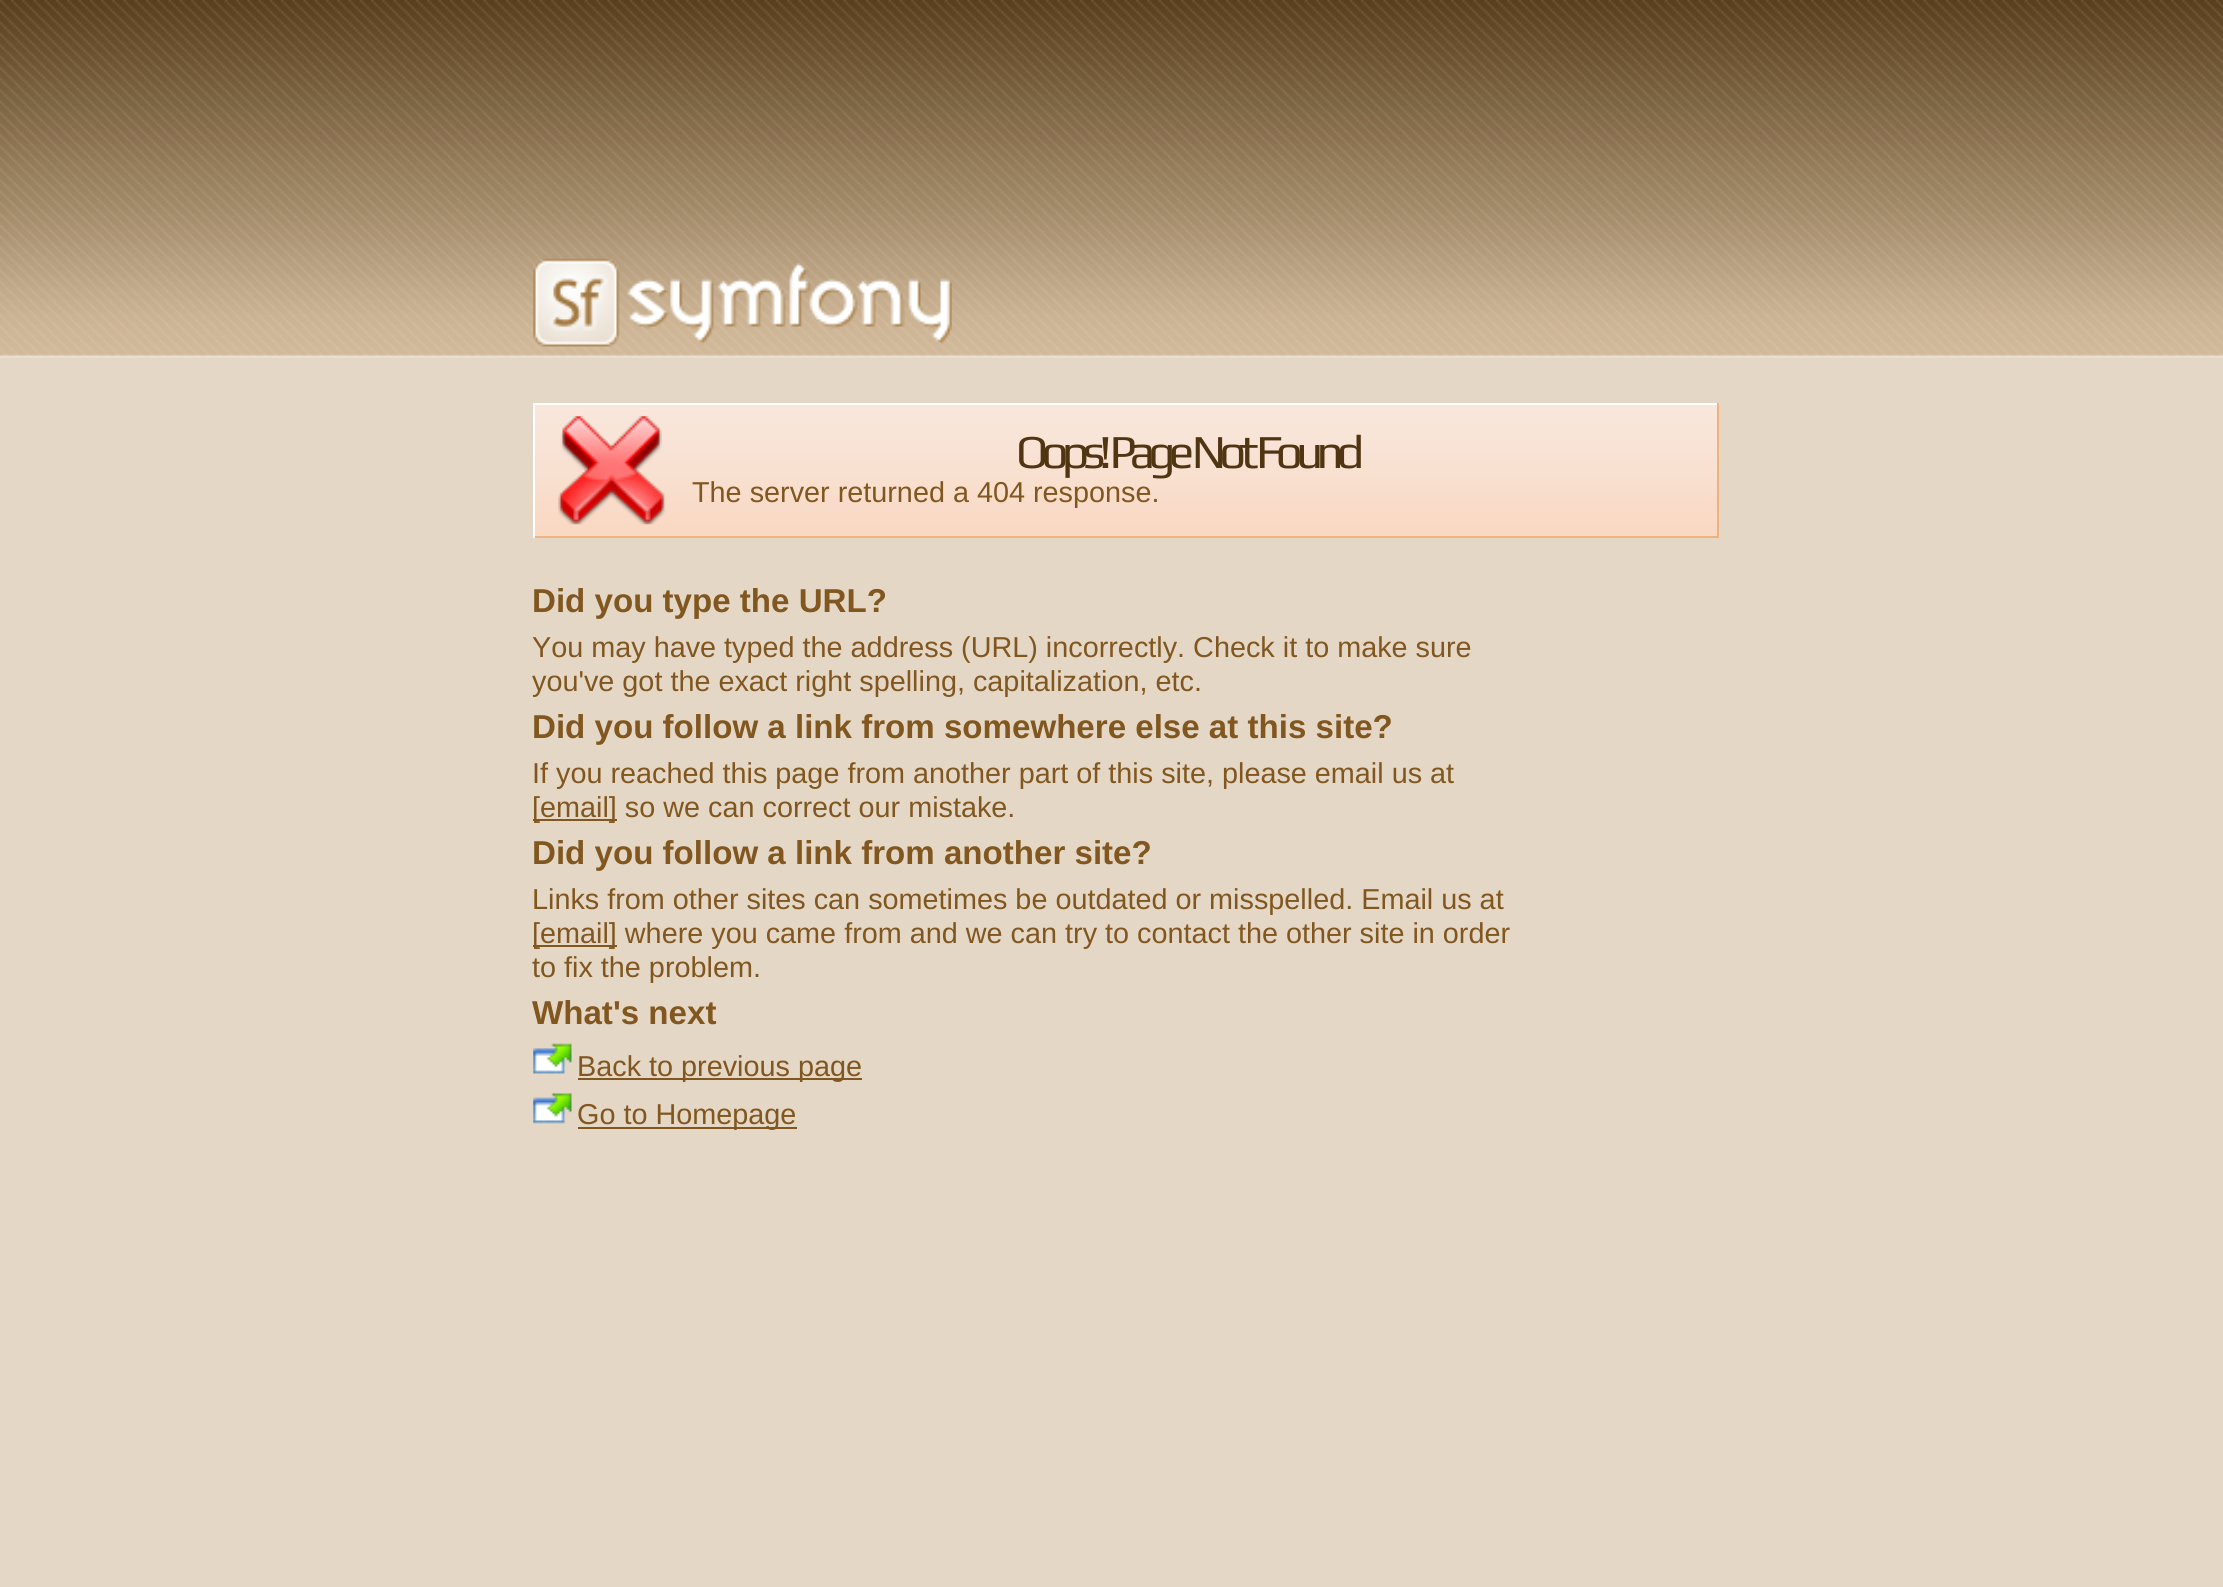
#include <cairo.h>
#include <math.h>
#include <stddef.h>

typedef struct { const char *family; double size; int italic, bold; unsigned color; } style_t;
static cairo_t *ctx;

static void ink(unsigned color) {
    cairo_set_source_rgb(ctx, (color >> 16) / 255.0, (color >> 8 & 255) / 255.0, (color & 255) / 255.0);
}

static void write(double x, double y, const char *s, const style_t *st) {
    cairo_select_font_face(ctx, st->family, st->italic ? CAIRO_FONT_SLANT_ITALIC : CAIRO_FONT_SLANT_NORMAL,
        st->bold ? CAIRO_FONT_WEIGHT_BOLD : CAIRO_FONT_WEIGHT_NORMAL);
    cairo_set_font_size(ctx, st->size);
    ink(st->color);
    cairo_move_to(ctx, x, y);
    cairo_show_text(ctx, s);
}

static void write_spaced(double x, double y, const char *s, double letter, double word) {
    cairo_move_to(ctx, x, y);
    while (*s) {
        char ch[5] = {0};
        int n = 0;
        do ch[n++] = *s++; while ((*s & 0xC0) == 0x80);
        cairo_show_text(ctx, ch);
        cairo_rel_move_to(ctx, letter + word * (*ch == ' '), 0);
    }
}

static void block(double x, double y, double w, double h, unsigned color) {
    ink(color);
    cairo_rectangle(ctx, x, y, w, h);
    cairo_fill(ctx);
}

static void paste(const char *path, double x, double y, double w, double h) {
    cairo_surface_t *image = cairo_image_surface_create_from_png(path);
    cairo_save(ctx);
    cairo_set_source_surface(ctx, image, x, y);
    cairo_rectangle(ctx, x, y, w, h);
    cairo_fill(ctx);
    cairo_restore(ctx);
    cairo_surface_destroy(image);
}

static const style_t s1 = {"Liberation Sans", 28.8, 0, 0, 0x81571f};
static const style_t s2 = {"Liberation Sans", 33.1, 0, 1, 0x81571f};

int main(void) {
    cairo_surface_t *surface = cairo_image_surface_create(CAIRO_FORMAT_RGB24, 2223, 1587);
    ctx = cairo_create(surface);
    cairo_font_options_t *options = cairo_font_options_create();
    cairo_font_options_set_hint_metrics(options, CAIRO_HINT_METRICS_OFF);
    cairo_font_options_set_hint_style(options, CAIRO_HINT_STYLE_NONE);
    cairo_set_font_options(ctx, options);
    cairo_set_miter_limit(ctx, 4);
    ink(0xe4d7c5);
    cairo_paint(ctx);
    paste("pic1.png", 0, 0, 2223, 358);
    paste("pic2.png", 533, 258, 419, 89);
    block(535, 535, 1182, 1, 0xf8e1d1);
    paste("pic3.png", 535, 405, 1182, 131);
    block(533, 403, 1186, 2, 0xffffff);
    block(1717, 403, 2, 135, 0xf0b17c);
    block(533, 536, 1186, 2, 0xf0b17c);
    block(533, 403, 2, 135, 0xffffff);
    paste("pic4.png", 558, 416, 108, 109);
    cairo_select_font_face(ctx, "Play", CAIRO_FONT_SLANT_NORMAL, CAIRO_FONT_WEIGHT_NORMAL);
    cairo_set_font_size(ctx, 47.5);
    ink(0x503512);
    write_spaced(1016, 468, "Oops! Page Not Found", -6.75, 0);
    write(692, 502, "The server returned a 404 response.", &s1);
    write(532, 612, "Did you type the URL?", &s2);
    write(532, 657, "You may have typed the address (URL) incorrectly. Check it to make sure", &s1);
    write(532, 691, "you've got the exact right spelling, capitalization, etc.", &s1);
    write(532, 738, "Did you follow a link from somewhere else at this site?", &s2);
    write(532, 783, "If you reached this page from another part of this site, please email us at", &s1);
    block(533, 819, 84, 2, 0x81571f);
    write(532, 817, "[email] so we can correct our mistake.", &s1);
    write(532, 864, "Did you follow a link from another site?", &s2);
    write(532, 909, "Links from other sites can sometimes be outdated or misspelled. Email us at", &s1);
    block(533, 945, 84, 2, 0x81571f);
    write(532, 943, "[email] where you came from and we can try to contact the other site in order", &s1);
    write(532, 977, "to fix the problem.", &s1);
    write(532, 1024, "What's next", &s2);
    paste("pic5.png", 533, 1043, 39, 31);
    block(578, 1078, 284, 2, 0x81571f);
    write(577, 1076, "Back to previous page", &s1);
    paste("pic6.png", 533, 1093, 39, 31);
    block(578, 1127, 219, 2, 0x81571f);
    write(577, 1124, "Go to Homepage", &s1);
    cairo_surface_write_to_png(surface, "screenshot.png");
    cairo_font_options_destroy(options);
    cairo_destroy(ctx);
    cairo_surface_destroy(surface);
    return 0;
}
